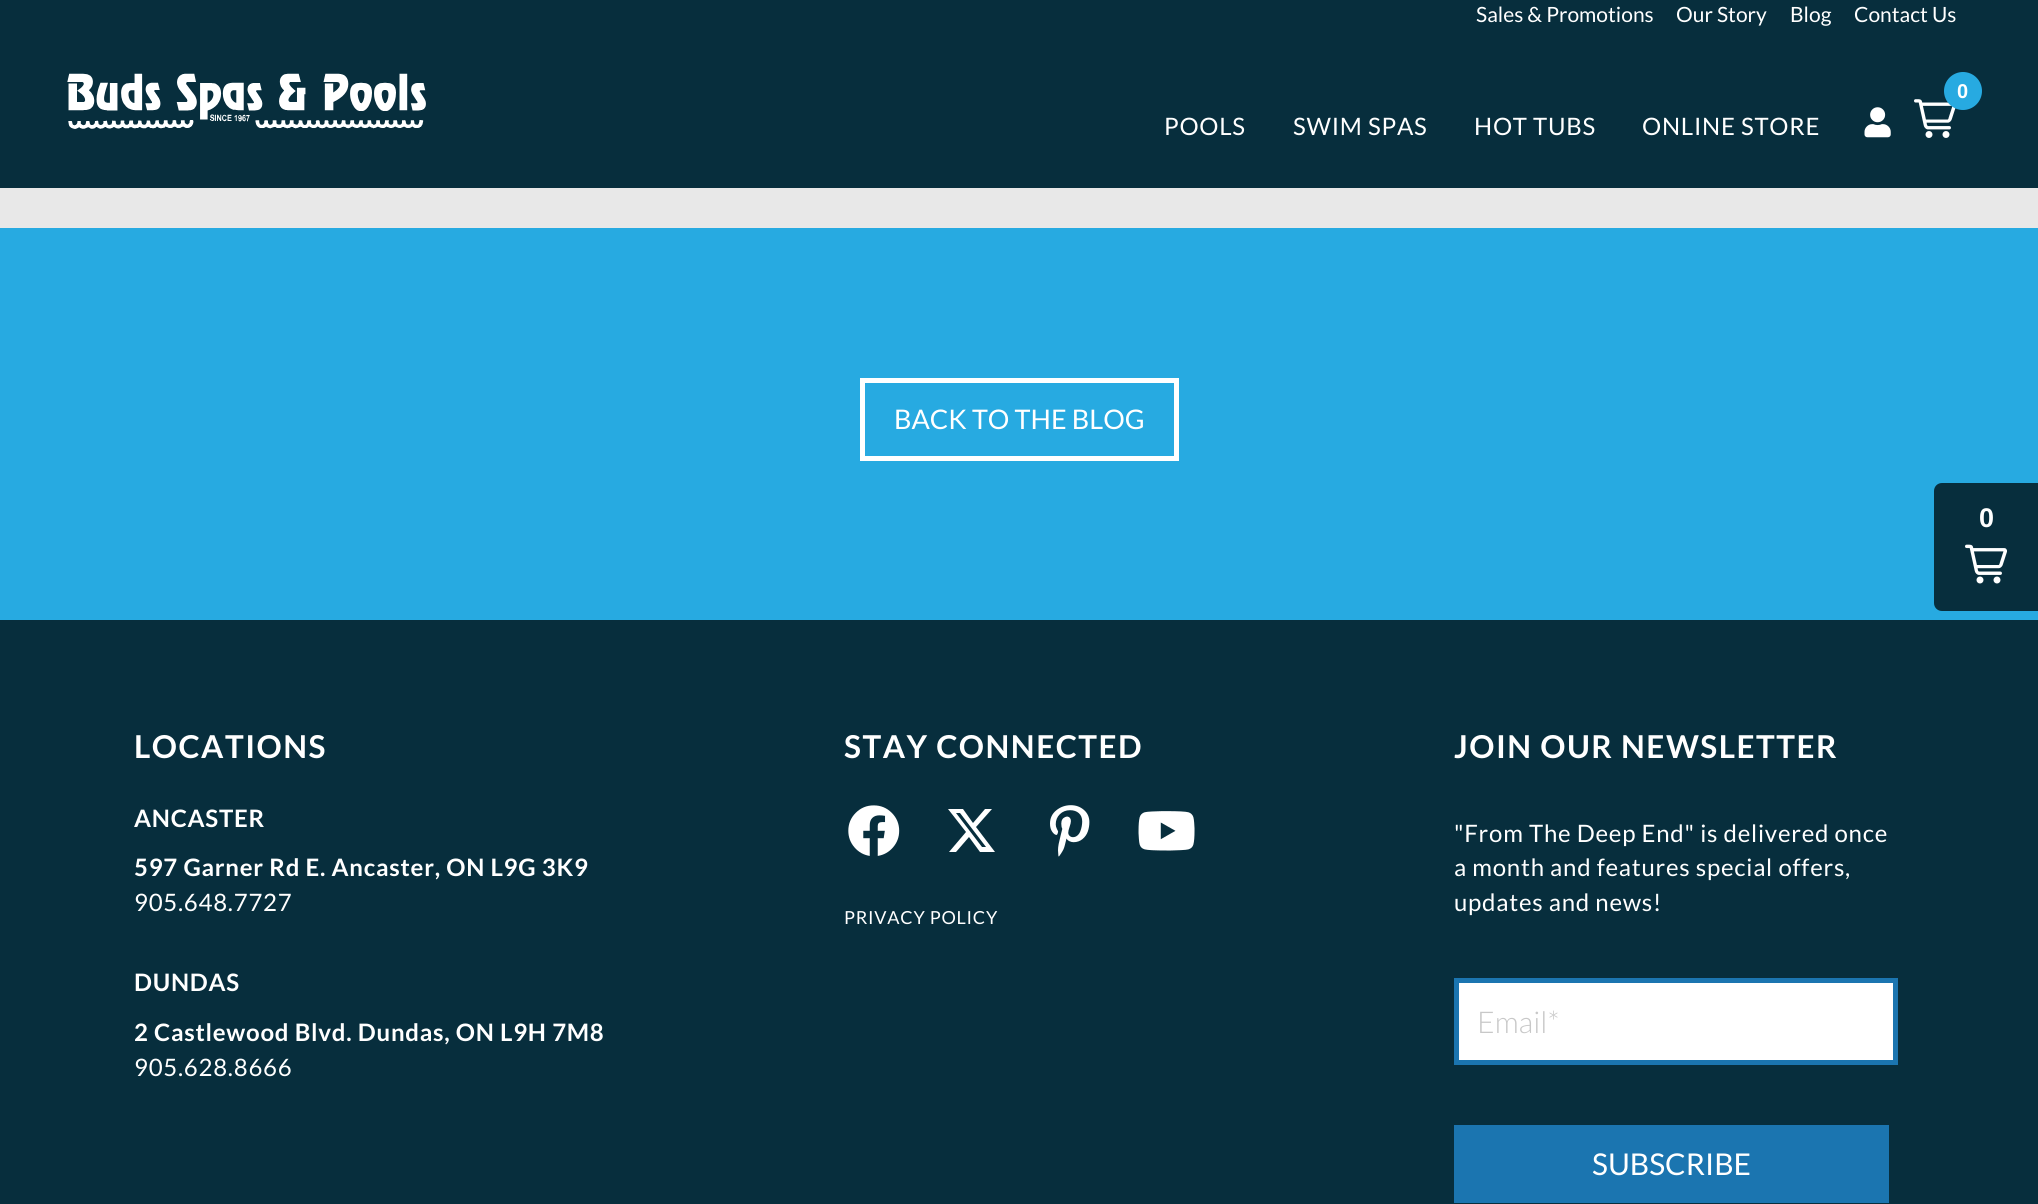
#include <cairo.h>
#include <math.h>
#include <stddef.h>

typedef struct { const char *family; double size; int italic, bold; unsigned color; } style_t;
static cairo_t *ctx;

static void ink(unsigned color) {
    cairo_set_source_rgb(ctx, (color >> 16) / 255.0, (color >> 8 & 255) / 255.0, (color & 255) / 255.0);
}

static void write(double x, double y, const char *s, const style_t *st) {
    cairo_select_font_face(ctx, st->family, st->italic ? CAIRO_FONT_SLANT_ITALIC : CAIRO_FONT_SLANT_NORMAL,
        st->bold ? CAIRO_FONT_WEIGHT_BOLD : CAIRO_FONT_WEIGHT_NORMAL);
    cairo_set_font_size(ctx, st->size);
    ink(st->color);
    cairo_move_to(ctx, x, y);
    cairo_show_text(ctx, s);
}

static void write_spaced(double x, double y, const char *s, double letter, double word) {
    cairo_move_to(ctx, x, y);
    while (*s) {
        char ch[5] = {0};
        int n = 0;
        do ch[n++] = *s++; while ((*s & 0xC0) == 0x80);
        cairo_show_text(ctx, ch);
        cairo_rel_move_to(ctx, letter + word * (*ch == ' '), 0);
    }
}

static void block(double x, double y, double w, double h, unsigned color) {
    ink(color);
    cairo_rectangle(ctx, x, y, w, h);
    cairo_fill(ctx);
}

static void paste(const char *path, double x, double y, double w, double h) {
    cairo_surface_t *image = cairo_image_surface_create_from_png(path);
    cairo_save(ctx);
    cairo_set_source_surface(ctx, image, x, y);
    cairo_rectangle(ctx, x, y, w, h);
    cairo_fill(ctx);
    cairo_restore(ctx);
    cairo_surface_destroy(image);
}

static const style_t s1 = {"Lato", 21, 0, 0, 0xffffff};
static const style_t s2 = {"Liberation Sans", 20, 0, 1, 0xffffff};
static const style_t s3 = {"Lato", 27, 0, 0, 0xffffff};
static const style_t s4 = {"Lato Light", 30, 0, 0, 0xc8c8c8};
static const style_t s5 = {"Lato", 30, 0, 0, 0xffffff};
static const style_t s6 = {"Liberation Sans", 27, 0, 1, 0xffffff};

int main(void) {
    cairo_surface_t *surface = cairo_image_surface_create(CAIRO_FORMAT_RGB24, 2038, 1204);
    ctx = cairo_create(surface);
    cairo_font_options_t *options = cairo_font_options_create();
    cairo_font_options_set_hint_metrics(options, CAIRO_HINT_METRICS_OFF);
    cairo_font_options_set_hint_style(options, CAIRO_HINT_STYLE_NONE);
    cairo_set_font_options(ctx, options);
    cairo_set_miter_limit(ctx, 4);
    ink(0xe8e8e8);
    cairo_paint(ctx);
    block(0, 0, 2038, 188, 0x072e3d);
    write(1476, 22, "Sales & Promotions", &s1);
    write(1676, 22, "Our Story", &s1);
    write(1790, 22, "Blog", &s1);
    write(1854, 22, "Contact Us", &s1);
    paste("pic1.png", 67, 73, 359, 56);
    paste("pic2.png", 1914, 99, 42, 39);
    ink(0x27aae1);
    cairo_arc(ctx, 1963, 91, 19, 0, 2 * M_PI);
    cairo_fill(ctx);
    write(1957, 98, "0", &s2);
    paste("pic3.png", 1864, 107, 27, 31);
    cairo_select_font_face(ctx, "Lato", CAIRO_FONT_SLANT_NORMAL, CAIRO_FONT_WEIGHT_NORMAL);
    cairo_set_font_size(ctx, 24);
    write_spaced(1164, 135, "POOLS", 0.75, 0);
    write_spaced(1293, 135, "SWIM SPAS", 0.75, 0);
    write_spaced(1474, 135, "HOT TUBS", 0.75, 0);
    write_spaced(1642, 135, "ONLINE STORE", 0.75, 0);
    block(0, 228, 2038, 392, 0x27aae1);
    cairo_rectangle(ctx, 862.5, 380.5, 314, 78);
    ink(0xffffff);
    cairo_set_line_width(ctx, 5);
    cairo_stroke(ctx);
    write(894, 429, "BACK TO THE BLOG", &s3);
    block(0, 620, 2038, 584, 0x072e3d);
    cairo_select_font_face(ctx, "Lato", CAIRO_FONT_SLANT_NORMAL, CAIRO_FONT_WEIGHT_BOLD);
    cairo_set_font_size(ctx, 31.5);
    ink(0xffffff);
    write_spaced(134, 758, "LOCATIONS", 1.5, 0);
    cairo_set_font_size(ctx, 24);
    write_spaced(134, 827, "ANCASTER", 0.75, 0);
    write_spaced(134, 876, "597 Garner Rd E. Ancaster, ON L9G 3K9", 0.75, 0);
    cairo_select_font_face(ctx, "Lato", CAIRO_FONT_SLANT_NORMAL, CAIRO_FONT_WEIGHT_NORMAL);
    write_spaced(134, 911, "905.648.7727", 0.75, 0);
    cairo_select_font_face(ctx, "Lato", CAIRO_FONT_SLANT_NORMAL, CAIRO_FONT_WEIGHT_BOLD);
    write_spaced(134, 991, "DUNDAS", 0.75, 0);
    write_spaced(134, 1041, "2 Castlewood Blvd. Dundas, ON L9H 7M8", 0.75, 0);
    cairo_select_font_face(ctx, "Lato", CAIRO_FONT_SLANT_NORMAL, CAIRO_FONT_WEIGHT_NORMAL);
    write_spaced(134, 1076, "905.628.8666", 0.75, 0);
    cairo_select_font_face(ctx, "Lato", CAIRO_FONT_SLANT_NORMAL, CAIRO_FONT_WEIGHT_BOLD);
    cairo_set_font_size(ctx, 31.5);
    write_spaced(844, 758, "STAY CONNECTED", 1.5, 0);
    paste("pic4.png", 848, 805, 52, 51);
    cairo_new_path(ctx);
    cairo_move_to(ctx, 985, 809);
    cairo_line_to(ctx, 992, 809);
    cairo_line_to(ctx, 976, 827);
    cairo_line_to(ctx, 995, 852);
    cairo_line_to(ctx, 980, 852);
    cairo_line_to(ctx, 969, 837);
    cairo_line_to(ctx, 956, 852);
    cairo_line_to(ctx, 949, 852);
    cairo_line_to(ctx, 966, 832);
    cairo_line_to(ctx, 948, 809);
    cairo_line_to(ctx, 963, 809);
    cairo_line_to(ctx, 973, 823);
    cairo_close_path(ctx);
    cairo_move_to(ctx, 982, 847);
    cairo_line_to(ctx, 986, 847);
    cairo_line_to(ctx, 960, 813);
    cairo_line_to(ctx, 956, 813);
    cairo_close_path(ctx);
    cairo_fill(ctx);
    paste("pic5.png", 1050, 805, 40, 52);
    paste("pic6.png", 1138, 811, 57, 40);
    cairo_select_font_face(ctx, "Lato", CAIRO_FONT_SLANT_NORMAL, CAIRO_FONT_WEIGHT_NORMAL);
    cairo_set_font_size(ctx, 18);
    write_spaced(844, 924, "PRIVACY POLICY", 0.75, 0);
    cairo_select_font_face(ctx, "Lato", CAIRO_FONT_SLANT_NORMAL, CAIRO_FONT_WEIGHT_BOLD);
    cairo_set_font_size(ctx, 31.5);
    write_spaced(1454, 758, "JOIN OUR NEWSLETTER", 1.5, 0);
    cairo_select_font_face(ctx, "Lato", CAIRO_FONT_SLANT_NORMAL, CAIRO_FONT_WEIGHT_NORMAL);
    cairo_set_font_size(ctx, 24);
    write_spaced(1454, 842, "\"From The Deep End\" is delivered once", 0.75, 0);
    write_spaced(1454, 876, "a month and features special offers,", 0.75, 0);
    write_spaced(1454, 911, "updates and news!", 0.75, 0);
    cairo_rectangle(ctx, 1456.5, 980.5, 439, 82);
    cairo_fill_preserve(ctx);
    ink(0x1b75b0);
    cairo_stroke(ctx);
    write(1477, 1033, "Email*", &s4);
    block(1454, 1125, 435, 78, 0x1b75b0);
    write(1592, 1175, "SUBSCRIBE", &s5);
    ink(0x072e3d);
    cairo_new_path(ctx);
    cairo_move_to(ctx, 1942, 483);
    cairo_line_to(ctx, 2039, 483);
    cairo_line_to(ctx, 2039, 611);
    cairo_line_to(ctx, 1942, 611);
    cairo_curve_to(ctx, 1937.5, 611, 1934, 607.5, 1934, 603);
    cairo_line_to(ctx, 1934, 491);
    cairo_curve_to(ctx, 1934, 486.5, 1937.5, 483, 1942, 483);
    cairo_close_path(ctx);
    cairo_fill(ctx);
    write(1979, 527, "0", &s6);
    paste("pic7.png", 1965, 544, 42, 40);
    cairo_surface_write_to_png(surface, "screenshot.png");
    cairo_font_options_destroy(options);
    cairo_destroy(ctx);
    cairo_surface_destroy(surface);
    return 0;
}
